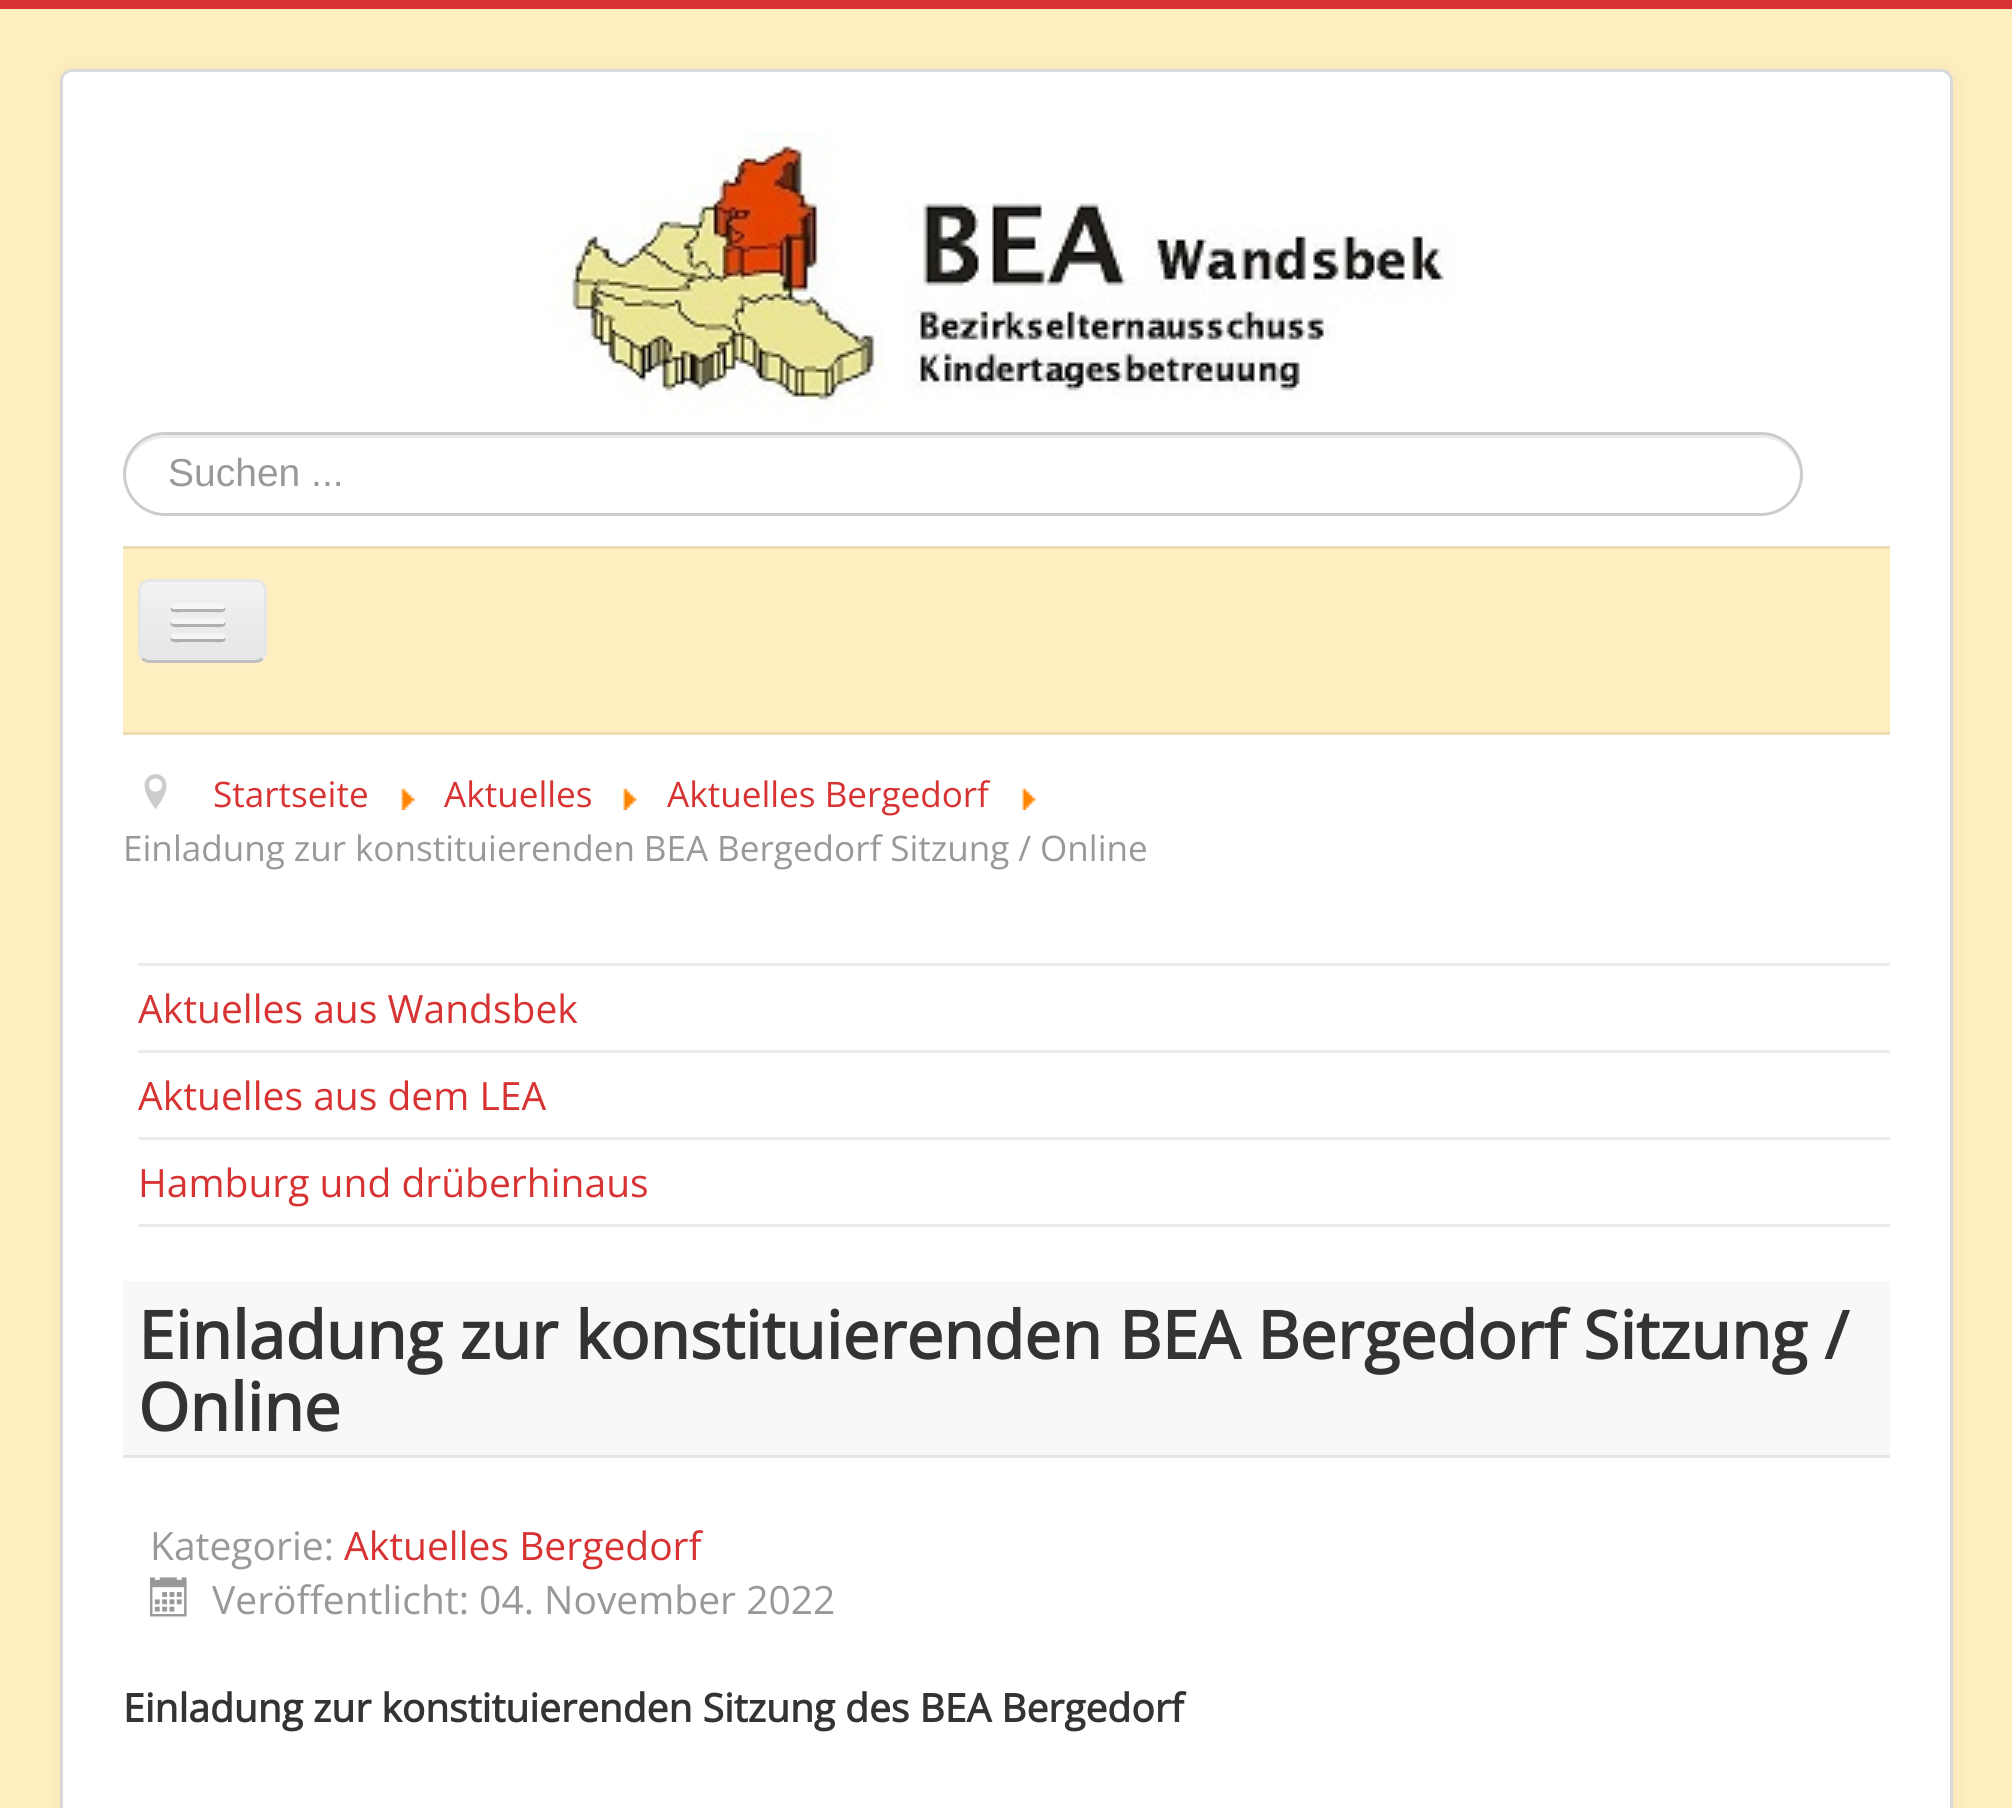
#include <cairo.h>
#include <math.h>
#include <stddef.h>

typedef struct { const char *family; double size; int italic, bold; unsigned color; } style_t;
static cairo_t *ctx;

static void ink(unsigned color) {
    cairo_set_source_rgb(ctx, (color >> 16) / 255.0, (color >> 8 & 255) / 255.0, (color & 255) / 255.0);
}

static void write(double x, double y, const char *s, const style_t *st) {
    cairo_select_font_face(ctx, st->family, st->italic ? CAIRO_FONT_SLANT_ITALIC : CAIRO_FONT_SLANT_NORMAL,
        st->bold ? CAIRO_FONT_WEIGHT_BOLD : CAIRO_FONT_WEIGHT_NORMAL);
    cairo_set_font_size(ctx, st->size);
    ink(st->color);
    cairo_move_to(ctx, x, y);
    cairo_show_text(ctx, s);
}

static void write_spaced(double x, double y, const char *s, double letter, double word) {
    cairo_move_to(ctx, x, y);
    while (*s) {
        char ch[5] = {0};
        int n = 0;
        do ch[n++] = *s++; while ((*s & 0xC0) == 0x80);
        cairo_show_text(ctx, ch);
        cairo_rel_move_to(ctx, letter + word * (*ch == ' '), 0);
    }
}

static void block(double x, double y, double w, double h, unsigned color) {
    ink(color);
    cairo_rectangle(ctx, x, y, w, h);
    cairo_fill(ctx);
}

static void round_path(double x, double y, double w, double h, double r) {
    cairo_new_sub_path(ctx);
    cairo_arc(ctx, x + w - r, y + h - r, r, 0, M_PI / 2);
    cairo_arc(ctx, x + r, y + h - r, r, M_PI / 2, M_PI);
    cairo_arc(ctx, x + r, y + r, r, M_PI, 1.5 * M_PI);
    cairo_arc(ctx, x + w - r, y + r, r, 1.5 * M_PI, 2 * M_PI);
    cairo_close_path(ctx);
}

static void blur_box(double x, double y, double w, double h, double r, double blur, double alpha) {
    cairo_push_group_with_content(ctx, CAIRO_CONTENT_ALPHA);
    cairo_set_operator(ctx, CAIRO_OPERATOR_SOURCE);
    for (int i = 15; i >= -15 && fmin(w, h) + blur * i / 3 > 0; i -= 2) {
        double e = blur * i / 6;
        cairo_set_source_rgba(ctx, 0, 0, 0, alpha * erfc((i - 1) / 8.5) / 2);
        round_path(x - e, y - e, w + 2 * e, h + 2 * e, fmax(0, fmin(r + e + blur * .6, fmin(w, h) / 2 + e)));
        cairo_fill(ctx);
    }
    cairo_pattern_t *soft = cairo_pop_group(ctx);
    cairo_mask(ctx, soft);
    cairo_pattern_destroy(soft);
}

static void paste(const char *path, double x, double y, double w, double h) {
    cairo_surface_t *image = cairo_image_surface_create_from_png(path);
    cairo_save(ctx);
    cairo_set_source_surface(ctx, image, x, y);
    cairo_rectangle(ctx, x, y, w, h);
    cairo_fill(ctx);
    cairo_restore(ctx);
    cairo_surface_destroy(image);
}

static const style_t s1 = {"Liberation Sans", 39, 0, 0, 0x999999};
static const style_t s2 = {"Open Sans", 35.1, 0, 0, 0xd73333};
static const style_t s3 = {"Open Sans", 39, 0, 0, 0xd73333};
static const style_t s4 = {"Open Sans", 66, 0, 1, 0x333333};
static const style_t s5 = {"Open Sans", 39, 0, 0, 0x999999};
static const style_t s6 = {"Open Sans", 39, 0, 1, 0x333333};

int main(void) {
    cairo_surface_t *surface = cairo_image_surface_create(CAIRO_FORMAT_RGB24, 2012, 1808);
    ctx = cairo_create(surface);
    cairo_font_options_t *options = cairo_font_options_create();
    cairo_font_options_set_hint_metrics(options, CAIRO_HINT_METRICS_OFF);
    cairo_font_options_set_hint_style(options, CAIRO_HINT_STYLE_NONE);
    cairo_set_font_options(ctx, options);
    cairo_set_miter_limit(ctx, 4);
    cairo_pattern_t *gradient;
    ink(0xffeebf);
    cairo_paint(ctx);
    block(0, 0, 2012, 9, 0xd73333);
    ink(0x000000);
    blur_box(60, 69, 1893, 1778, 12, 9, 0.05);
    ink(0xffffff);
    round_path(60, 69, 1893, 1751, 12);
    cairo_fill(ctx);
    round_path(61.5, 70.5, 1890, 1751, 10.5);
    cairo_set_source_rgba(ctx, 0, 0, 0, 0.15);
    cairo_set_line_width(ctx, 3);
    cairo_stroke(ctx);
    paste("pic1.png", 546, 132, 909, 288);
    ink(0xececec);
    cairo_new_path(ctx);
    cairo_move_to(ctx, 165, 438);
    cairo_line_to(ctx, 1761, 438);
    cairo_curve_to(ctx, 1782, 438, 1799, 454, 1800, 475);
    cairo_curve_to(ctx, 1801, 454, 1783, 435, 1761, 435);
    cairo_line_to(ctx, 165, 435);
    cairo_curve_to(ctx, 143, 435, 125, 454, 126, 475);
    cairo_curve_to(ctx, 127, 454, 144, 438, 165, 438);
    cairo_close_path(ctx);
    cairo_fill(ctx);
    round_path(124.5, 433.5, 1677, 81, 40.5);
    ink(0xcccccc);
    cairo_stroke(ctx);
    write(168, 486, "Suchen ...", &s1);
    block(123, 549, 1767, 183, 0xffeebf);
    block(123, 546, 1767, 3, 0xecdcb1);
    block(123, 732, 1767, 3, 0xecdcb1);
    ink(0xffefc4);
    cairo_new_path(ctx);
    cairo_move_to(ctx, 138, 651);
    cairo_curve_to(ctx, 138, 670, 153, 666, 168, 666);
    cairo_line_to(ctx, 238, 666);
    cairo_curve_to(ctx, 252, 666, 267, 670, 267, 651);
    cairo_curve_to(ctx, 267, 658, 262, 663, 255, 663);
    cairo_line_to(ctx, 150, 663);
    cairo_curve_to(ctx, 143, 663, 138, 658, 138, 651);
    cairo_close_path(ctx);
    cairo_fill(ctx);
    cairo_save(ctx);
    round_path(138, 579, 129, 84, 12);
    cairo_clip(ctx);
    gradient = cairo_pattern_create_linear(203, 582, 203, 660);
    cairo_pattern_add_color_stop_rgba(gradient, 0, 0.949, 0.949, 0.949, 1);
    cairo_pattern_add_color_stop_rgba(gradient, 1, 0.902, 0.902, 0.902, 1);
    cairo_set_source(ctx, gradient);
    cairo_pattern_destroy(gradient);
    cairo_rectangle(ctx, 138, 582, 129, 78);
    cairo_fill(ctx);
    cairo_restore(ctx);
    ink(0xf3f3f3);
    cairo_new_path(ctx);
    cairo_move_to(ctx, 150, 585);
    cairo_line_to(ctx, 255, 585);
    cairo_curve_to(ctx, 260, 585, 264, 589, 264, 594);
    cairo_curve_to(ctx, 264, 578, 251, 582, 238, 582);
    cairo_line_to(ctx, 168, 582);
    cairo_curve_to(ctx, 154, 582, 141, 578, 141, 594);
    cairo_curve_to(ctx, 141, 589, 145, 585, 150, 585);
    cairo_close_path(ctx);
    cairo_fill(ctx);
    cairo_new_path(ctx);
    cairo_move_to(ctx, 262.5, 658.5);
    cairo_curve_to(ctx, 260.5, 660.5, 258, 661.5, 255, 661.5);
    cairo_line_to(ctx, 150, 661.5);
    cairo_curve_to(ctx, 147, 661.5, 144.5, 660.5, 142.5, 658.5);
    ink(0xbfbfbf);
    cairo_stroke(ctx);
    cairo_new_path(ctx);
    cairo_move_to(ctx, 142.5, 658.5);
    cairo_curve_to(ctx, 140.5, 656.5, 139.5, 654, 139.5, 651);
    cairo_line_to(ctx, 139.5, 591);
    cairo_curve_to(ctx, 139.5, 588, 140.5, 585.5, 142.5, 583.5);
    cairo_curve_to(ctx, 144.5, 581.5, 147, 580.5, 150, 580.5);
    cairo_line_to(ctx, 255, 580.5);
    cairo_curve_to(ctx, 258, 580.5, 260.5, 581.5, 262.5, 583.5);
    cairo_curve_to(ctx, 264.5, 585.5, 265.5, 588, 265.5, 591);
    cairo_line_to(ctx, 265.5, 651);
    cairo_curve_to(ctx, 265.5, 654, 264.5, 656.5, 262.5, 658.5);
    ink(0xe6e6e6);
    cairo_stroke(ctx);
    ink(0xb2b2b2);
    cairo_new_path(ctx);
    cairo_move_to(ctx, 171, 608);
    cairo_curve_to(ctx, 168, 614, 182, 612, 182, 612);
    cairo_line_to(ctx, 214, 612);
    cairo_curve_to(ctx, 214, 612, 228, 614, 225, 608);
    cairo_curve_to(ctx, 224, 608, 223, 609, 222, 609);
    cairo_line_to(ctx, 174, 609);
    cairo_curve_to(ctx, 173, 609, 172, 608, 171, 608);
    cairo_close_path(ctx);
    cairo_fill(ctx);
    ink(0xf5f5f5);
    round_path(171, 603, 54, 6, 3);
    cairo_fill(ctx);
    ink(0xb0b0b0);
    cairo_new_path(ctx);
    cairo_move_to(ctx, 171, 622);
    cairo_curve_to(ctx, 168, 629, 182, 627, 182, 627);
    cairo_line_to(ctx, 214, 627);
    cairo_curve_to(ctx, 214, 627, 228, 629, 225, 622);
    cairo_curve_to(ctx, 224, 623, 223, 624, 222, 624);
    cairo_line_to(ctx, 174, 624);
    cairo_curve_to(ctx, 173, 624, 172, 623, 171, 622);
    cairo_close_path(ctx);
    cairo_fill(ctx);
    ink(0xf5f5f5);
    round_path(171, 618, 54, 6, 3);
    cairo_fill(ctx);
    ink(0xafafaf);
    cairo_new_path(ctx);
    cairo_move_to(ctx, 171, 638);
    cairo_curve_to(ctx, 168, 644, 182, 642, 182, 642);
    cairo_line_to(ctx, 214, 642);
    cairo_curve_to(ctx, 214, 642, 228, 644, 225, 638);
    cairo_curve_to(ctx, 224, 638, 223, 639, 222, 639);
    cairo_line_to(ctx, 174, 639);
    cairo_curve_to(ctx, 173, 639, 172, 638, 171, 638);
    cairo_close_path(ctx);
    cairo_fill(ctx);
    ink(0xf5f5f5);
    round_path(171, 633, 54, 6, 3);
    cairo_fill(ctx);
    paste("pic2.png", 144, 774, 23, 35);
    write(213, 807, "Startseite", &s2);
    paste("pic3.png", 401, 788, 15, 22);
    write(444, 807, "Aktuelles", &s2);
    paste("pic4.png", 623, 788, 14, 22);
    write(667, 807, "Aktuelles Bergedorf", &s2);
    paste("pic4.png", 1022, 788, 14, 22);
    ink(0x999999);
    write_spaced(123, 861, "Einladung zur konstituierenden BEA Bergedorf Sitzung / Online", 0, -0.25);
    block(138, 963, 1752, 3, 0xececec);
    block(138, 1050, 1752, 3, 0xececec);
    write(138, 1023, "Aktuelles aus Wandsbek", &s3);
    block(138, 1137, 1752, 3, 0xececec);
    write(138, 1110, "Aktuelles aus dem LEA", &s3);
    block(138, 1224, 1752, 3, 0xececec);
    write(138, 1197, "Hamburg und drüberhinaus", &s3);
    block(123, 1281, 1767, 174, 0xf8f8f8);
    block(123, 1455, 1767, 3, 0xe5e5e5);
    write(138, 1359, "Einladung zur konstituierenden BEA Bergedorf Sitzung /", &s4);
    write(138, 1431, "Online", &s4);
    write(150, 1560, "Kategorie:", &s5);
    write(344, 1560, "Aktuelles Bergedorf", &s3);
    paste("pic5.png", 150, 1577, 37, 40);
    write(212, 1614, "Veröffentlicht: 04. November 2022", &s5);
    write(123, 1722, "Einladung zur konstituierenden Sitzung des BEA Bergedorf", &s6);
    cairo_surface_write_to_png(surface, "screenshot.png");
    cairo_font_options_destroy(options);
    cairo_destroy(ctx);
    cairo_surface_destroy(surface);
    return 0;
}
